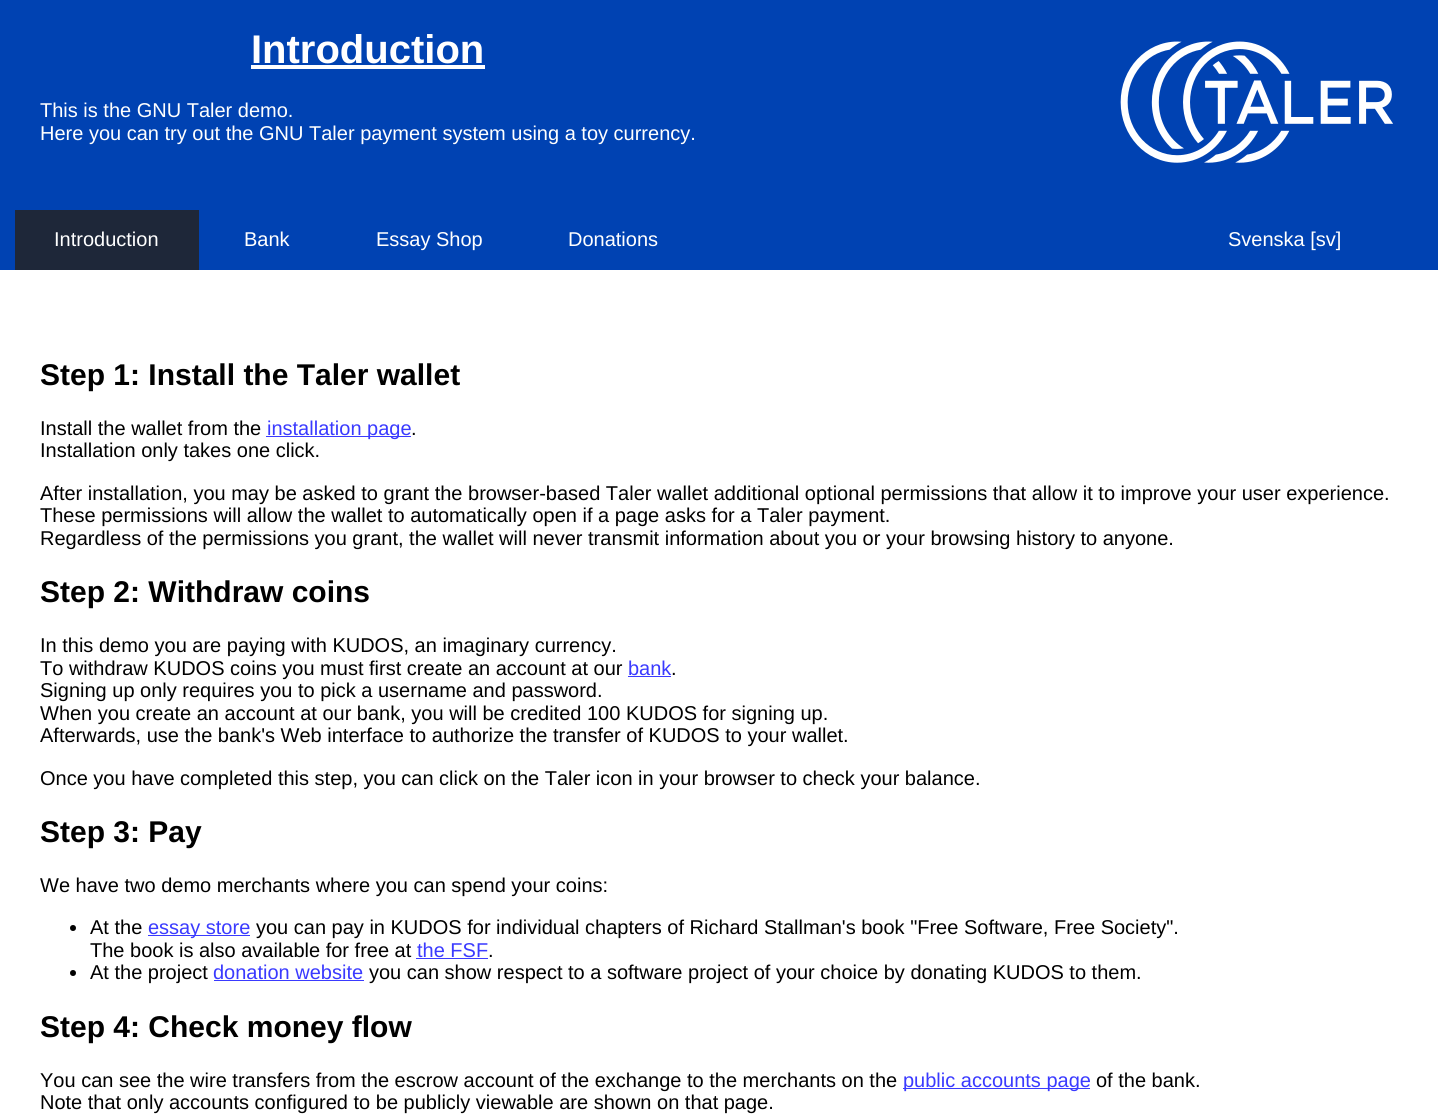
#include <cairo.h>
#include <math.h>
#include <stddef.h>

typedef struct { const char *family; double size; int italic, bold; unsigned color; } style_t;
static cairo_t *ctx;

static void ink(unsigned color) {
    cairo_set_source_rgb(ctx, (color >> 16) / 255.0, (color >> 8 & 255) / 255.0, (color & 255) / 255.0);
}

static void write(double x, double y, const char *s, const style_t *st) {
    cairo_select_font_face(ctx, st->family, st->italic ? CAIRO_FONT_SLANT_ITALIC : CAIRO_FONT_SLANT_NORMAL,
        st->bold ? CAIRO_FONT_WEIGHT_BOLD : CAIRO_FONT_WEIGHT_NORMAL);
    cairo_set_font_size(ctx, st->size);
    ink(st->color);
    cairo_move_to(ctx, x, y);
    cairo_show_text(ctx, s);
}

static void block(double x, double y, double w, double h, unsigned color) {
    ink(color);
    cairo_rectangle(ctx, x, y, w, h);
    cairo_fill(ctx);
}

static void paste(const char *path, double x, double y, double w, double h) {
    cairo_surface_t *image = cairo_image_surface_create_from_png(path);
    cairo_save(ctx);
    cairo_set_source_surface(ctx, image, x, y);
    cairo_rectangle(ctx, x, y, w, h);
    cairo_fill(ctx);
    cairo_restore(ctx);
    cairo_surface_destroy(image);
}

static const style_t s1 = {"Liberation Sans", 40, 0, 1, 0xffffff};
static const style_t s2 = {"Liberation Sans", 20, 0, 0, 0xffffff};
static const style_t s3 = {"Liberation Sans", 30, 0, 1, 0x000000};
static const style_t s4 = {"Liberation Sans", 20, 0, 0, 0x000000};
static const style_t s5 = {"Liberation Sans", 20, 0, 0, 0x3a3aff};

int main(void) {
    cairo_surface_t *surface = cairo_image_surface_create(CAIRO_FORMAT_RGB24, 1438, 1120);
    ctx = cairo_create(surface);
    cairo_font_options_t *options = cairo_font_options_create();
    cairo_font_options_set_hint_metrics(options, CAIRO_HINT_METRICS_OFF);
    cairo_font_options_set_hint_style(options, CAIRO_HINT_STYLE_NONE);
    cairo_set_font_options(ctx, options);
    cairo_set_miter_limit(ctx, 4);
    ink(0xffffff);
    cairo_paint(ctx);
    block(0, 0, 1438, 270, 0x0042b2);
    write(251, 63, "Introduction", &s1);
    block(251, 65, 234, 4, 0xffffff);
    write(40, 117, "This is the GNU Taler demo.", &s2);
    write(40, 140, "Here you can try out the GNU Taler payment system using a toy currency.", &s2);
    paste("pic1.png", 1120, 41, 273, 122);
    block(15, 210, 184, 60, 0x1e2739);
    write(54, 246, "Introduction", &s2);
    write(244, 246, "Bank", &s2);
    write(376, 246, "Essay Shop", &s2);
    write(568, 246, "Donations", &s2);
    write(1228, 246, "Svenska [sv]", &s2);
    write(40, 385, "Step 1: Install the Taler wallet", &s3);
    write(40, 435, "Install the wallet from the", &s4);
    block(266, 436, 145, 1, 0x3a3aff);
    write(267, 435, "installation page", &s5);
    write(411, 435, ".", &s4);
    write(40, 457, "Installation only takes one click.", &s4);
    write(40, 500, "After installation, you may be asked to grant the browser-based Taler wallet additional optional permissions that allow it to improve your user experience.", &s4);
    write(40, 522, "These permissions will allow the wallet to automatically open if a page asks for a Taler payment.", &s4);
    write(40, 545, "Regardless of the permissions you grant, the wallet will never transmit information about you or your browsing history to anyone.", &s4);
    write(40, 602, "Step 2: Withdraw coins", &s3);
    write(40, 652, "In this demo you are paying with KUDOS, an imaginary currency.", &s4);
    write(40, 675, "To withdraw KUDOS coins you must first create an account at our", &s4);
    write(628, 675, "bank", &s5);
    block(628, 676, 43, 1, 0x3a3aff);
    write(671, 675, ".", &s4);
    write(40, 697, "Signing up only requires you to pick a username and password.", &s4);
    write(40, 720, "When you create an account at our bank, you will be credited 100 KUDOS for signing up.", &s4);
    write(40, 742, "Afterwards, use the bank's Web interface to authorize the transfer of KUDOS to your wallet.", &s4);
    write(40, 785, "Once you have completed this step, you can click on the Taler icon in your browser to check your balance.", &s4);
    write(40, 842, "Step 3: Pay", &s3);
    write(40, 892, "We have two demo merchants where you can spend your coins:", &s4);
    cairo_new_path(ctx);
    cairo_arc(ctx, 73, 928, 3, 0, 2 * M_PI);
    cairo_fill(ctx);
    write(90, 934, "At the", &s4);
    block(148, 935, 102, 1, 0x3a3aff);
    write(148, 934, "essay store", &s5);
    write(256, 934, "you can pay in KUDOS for individual chapters of Richard Stallman's book \"Free Software, Free Society\".", &s4);
    write(90, 957, "The book is also available for free at", &s4);
    write(417, 957, "the FSF", &s5);
    block(416, 958, 72, 1, 0x3a3aff);
    write(488, 957, ".", &s4);
    cairo_new_path(ctx);
    cairo_arc(ctx, 73, 973, 3, 0, 2 * M_PI);
    cairo_fill(ctx);
    write(90, 979, "At the project", &s4);
    write(213, 979, "donation website", &s5);
    block(214, 980, 150, 1, 0x3a3aff);
    write(369, 979, "you can show respect to a software project of your choice by donating KUDOS to them.", &s4);
    write(40, 1037, "Step 4: Check money flow", &s3);
    write(40, 1087, "You can see the wire transfers from the escrow account of the exchange to the merchants on the", &s4);
    block(903, 1088, 187, 1, 0x3a3aff);
    write(903, 1087, "public accounts page", &s5);
    write(1096, 1087, "of the bank.", &s4);
    write(40, 1109, "Note that only accounts configured to be publicly viewable are shown on that page.", &s4);
    cairo_surface_write_to_png(surface, "screenshot.png");
    cairo_font_options_destroy(options);
    cairo_destroy(ctx);
    cairo_surface_destroy(surface);
    return 0;
}
